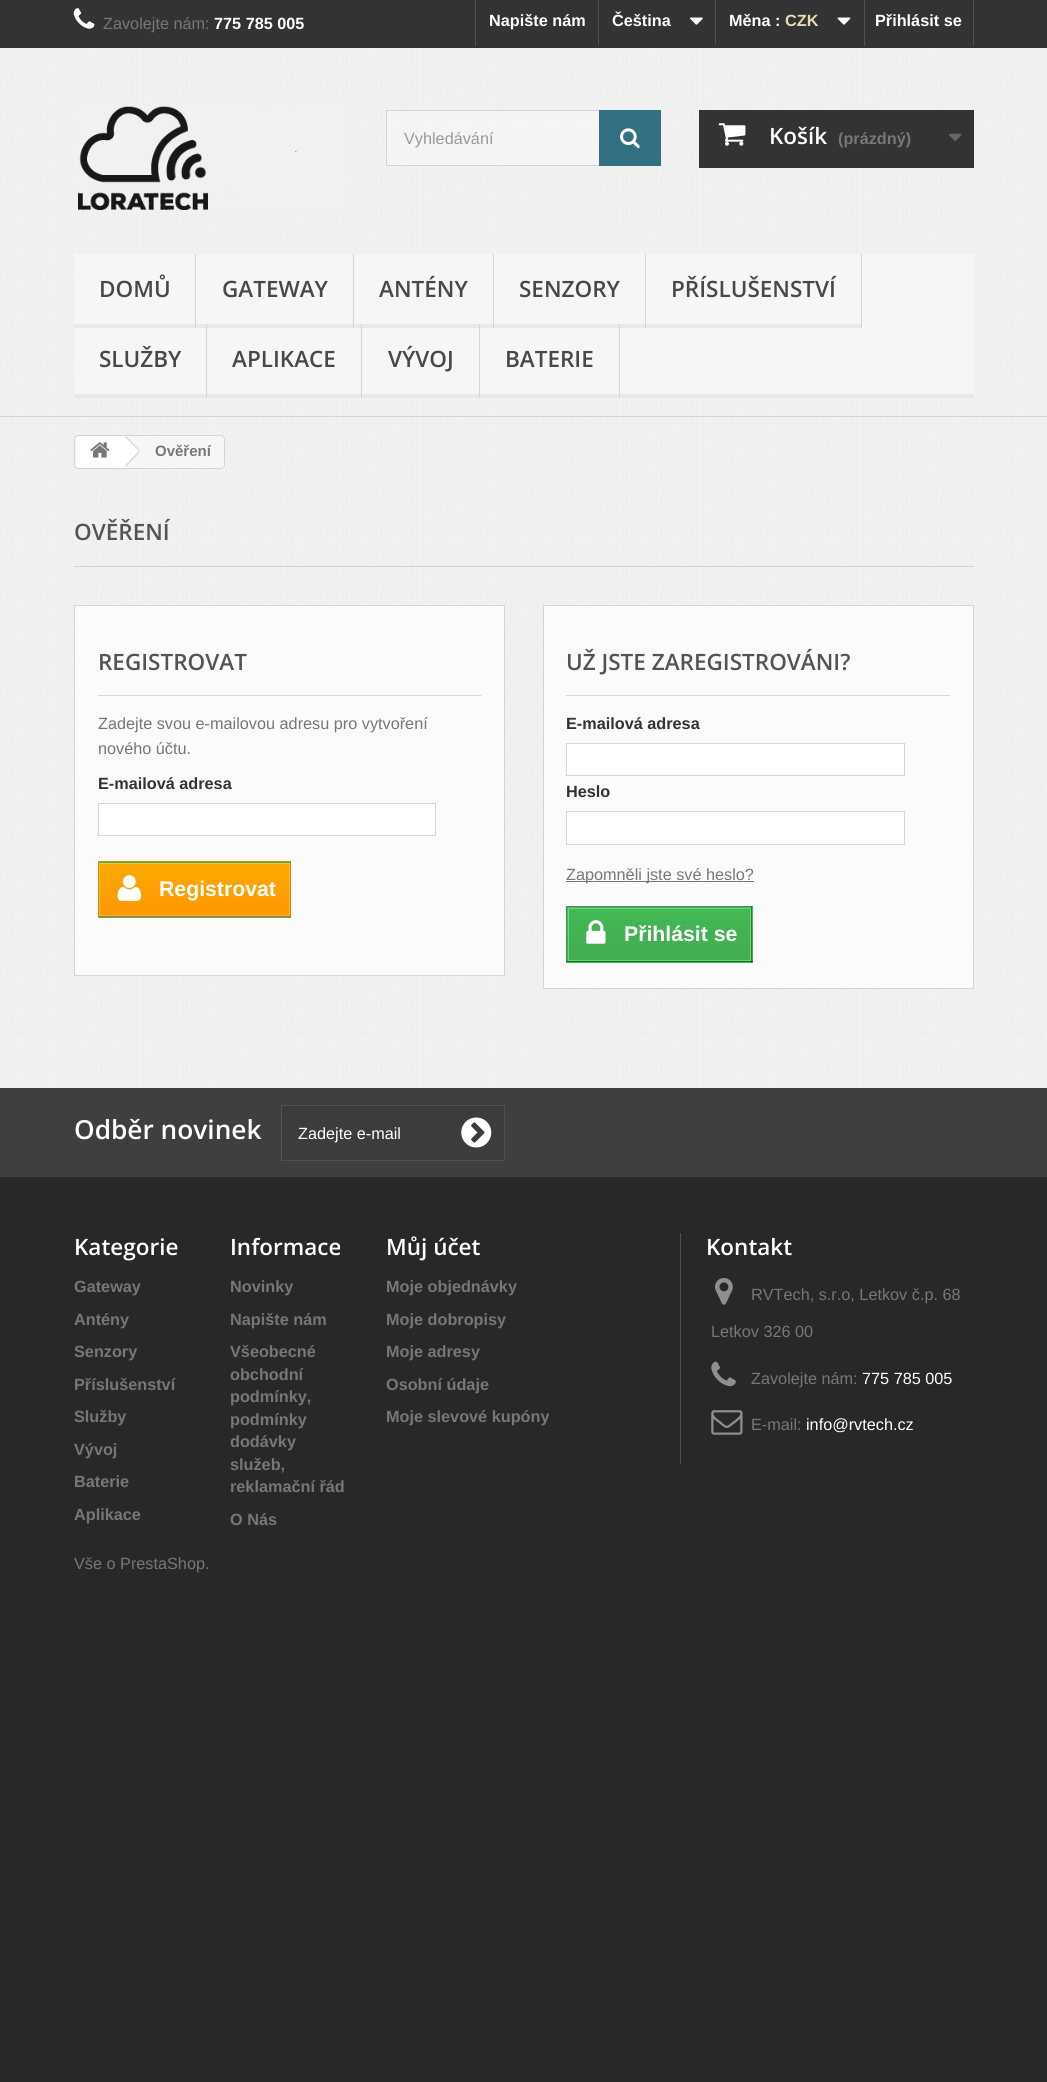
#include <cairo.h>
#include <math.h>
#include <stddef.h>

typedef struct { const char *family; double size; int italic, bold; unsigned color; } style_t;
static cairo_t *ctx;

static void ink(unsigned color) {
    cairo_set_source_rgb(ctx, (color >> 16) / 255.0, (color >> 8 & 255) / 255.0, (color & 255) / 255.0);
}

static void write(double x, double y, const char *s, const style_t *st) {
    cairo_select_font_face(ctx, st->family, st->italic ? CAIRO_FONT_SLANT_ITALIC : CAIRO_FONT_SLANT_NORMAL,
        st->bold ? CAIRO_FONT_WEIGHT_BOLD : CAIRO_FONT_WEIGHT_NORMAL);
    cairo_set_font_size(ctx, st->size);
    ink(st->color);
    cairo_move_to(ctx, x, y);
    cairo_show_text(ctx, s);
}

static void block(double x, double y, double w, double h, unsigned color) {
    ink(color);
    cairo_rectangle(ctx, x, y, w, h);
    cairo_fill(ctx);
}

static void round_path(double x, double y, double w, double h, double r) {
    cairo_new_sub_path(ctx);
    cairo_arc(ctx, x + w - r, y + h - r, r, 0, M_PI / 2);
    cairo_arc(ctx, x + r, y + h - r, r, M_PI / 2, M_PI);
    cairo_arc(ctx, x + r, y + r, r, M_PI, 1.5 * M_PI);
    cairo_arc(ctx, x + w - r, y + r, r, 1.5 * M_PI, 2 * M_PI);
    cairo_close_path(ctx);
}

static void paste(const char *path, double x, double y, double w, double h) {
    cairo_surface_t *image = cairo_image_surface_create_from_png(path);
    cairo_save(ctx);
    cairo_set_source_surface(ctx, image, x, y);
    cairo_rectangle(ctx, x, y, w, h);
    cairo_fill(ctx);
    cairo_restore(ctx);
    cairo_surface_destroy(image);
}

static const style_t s1 = {"Liberation Sans", 16.25, 0, 0, 0x777777};
static const style_t s2 = {"Liberation Sans", 16.25, 0, 1, 0xffffff};
static const style_t s3 = {"Liberation Sans", 16.25, 0, 1, 0xe4dfb9};
static const style_t s4 = {"Liberation Sans", 16.25, 0, 0, 0x999999};
static const style_t s5 = {"Open Sans SemiBold", 22.5, 0, 0, 0xffffff};
static const style_t s6 = {"Liberation Sans", 16.25, 0, 1, 0x777777};
static const style_t s7 = {"Open Sans SemiBold", 22.5, 0, 0, 0x484848};
static const style_t s8 = {"Liberation Sans", 15, 0, 1, 0x777777};
static const style_t s9 = {"Open Sans SemiBold", 22.5, 0, 0, 0x555454};
static const style_t s10 = {"Liberation Sans", 16.25, 0, 1, 0x333333};
static const style_t s11 = {"Liberation Sans", 21.25, 0, 1, 0xffffff};
static const style_t s12 = {"Open Sans SemiBold", 26.25, 0, 0, 0xffffff};
static const style_t s13 = {"Liberation Sans", 16.25, 0, 0, 0xffffff};

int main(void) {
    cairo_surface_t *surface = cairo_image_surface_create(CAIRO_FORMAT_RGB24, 1047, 2082);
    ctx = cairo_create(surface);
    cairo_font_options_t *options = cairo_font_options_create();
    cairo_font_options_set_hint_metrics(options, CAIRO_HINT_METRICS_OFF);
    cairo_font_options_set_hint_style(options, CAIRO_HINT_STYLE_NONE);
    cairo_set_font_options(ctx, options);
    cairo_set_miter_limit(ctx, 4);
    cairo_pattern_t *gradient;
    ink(0x282828);
    cairo_paint(ctx);
    paste("pic1.png", 0, 48, 1047, 369);
    paste("pic10.png", 0, 416, 1047, 672);
    paste("pic2.png", 0, 416, 1047, 1);
    block(0, 0, 1047, 48, 0x333333);
    paste("pic3.png", 73, 8, 22, 21);
    write(103, 29, "Zavolejte nám:", &s1);
    write(214, 29, "775 785 005", &s2);
    block(475, 0, 1, 46, 0x515151);
    write(489, 26, "Napište nám", &s2);
    block(598, 0, 1, 45, 0x515151);
    write(612, 26, "Čeština", &s2);
    paste("pic4.png", 690, 17, 13, 8);
    block(715, 0, 1, 45, 0x515151);
    write(729, 26, "Měna :", &s2);
    write(785, 26, "CZK", &s3);
    paste("pic5.png", 837, 17, 14, 8);
    block(973, 0, 1, 46, 0x515151);
    block(864, 0, 1, 46, 0x515151);
    write(875, 26, "Přihlásit se", &s2);
    paste("pic6.png", 77, 104, 270, 107);
    cairo_set_source_rgba(ctx, 0.973, 0.973, 0.973, 0.63);
    cairo_rectangle(ctx, 387, 111, 212, 54);
    cairo_fill(ctx);
    cairo_rectangle(ctx, 386.5, 110.5, 274, 55);
    ink(0xd6d4d4);
    cairo_set_line_width(ctx, 1);
    cairo_stroke(ctx);
    write(404, 144, "Vyhledávání", &s4);
    block(599, 110, 62, 56, 0x327082);
    paste("pic7.png", 620, 128, 20, 20);
    block(699, 110, 275, 58, 0x333333);
    paste("pic8.png", 718, 123, 28, 23);
    write(769, 144, "Košík", &s5);
    write(838, 144, "(prázdný)", &s6);
    paste("pic9.png", 948, 133, 14, 8);
    block(74, 254, 900, 140, 0xf6f6f6);
    block(74, 394, 900, 4, 0xe9e9e9);
    block(195, 254, 1, 74, 0xd6d4d4);
    block(74, 324, 121, 4, 0xe9e9e9);
    write(99, 297, "DOMŮ", &s7);
    block(353, 254, 1, 74, 0xd6d4d4);
    block(196, 324, 157, 4, 0xe9e9e9);
    write(222, 297, "GATEWAY", &s7);
    block(493, 254, 1, 74, 0xd6d4d4);
    block(354, 324, 139, 4, 0xe9e9e9);
    write(379, 297, "ANTÉNY", &s7);
    block(645, 254, 1, 74, 0xd6d4d4);
    block(494, 324, 151, 4, 0xe9e9e9);
    write(519, 297, "SENZORY", &s7);
    block(861, 254, 1, 74, 0xd6d4d4);
    block(646, 324, 215, 4, 0xe9e9e9);
    write(671, 297, "PŘÍSLUŠENSTVÍ", &s7);
    block(206, 324, 1, 74, 0xd6d4d4);
    write(99, 367, "SLUŽBY", &s7);
    block(361, 324, 1, 74, 0xd6d4d4);
    write(232, 367, "APLIKACE", &s7);
    block(479, 324, 1, 74, 0xd6d4d4);
    write(388, 367, "VÝVOJ", &s7);
    block(619, 324, 1, 74, 0xd6d4d4);
    write(505, 367, "BATERIE", &s7);
    ink(0xf6f6f6);
    round_path(74.5, 435.5, 150, 33, 3.5);
    cairo_fill_preserve(ctx);
    ink(0xd6d4d4);
    cairo_stroke(ctx);
    ink(0xffffff);
    cairo_new_path(ctx);
    cairo_move_to(ctx, 80, 436);
    cairo_line_to(ctx, 124, 436);
    cairo_line_to(ctx, 124, 468);
    cairo_line_to(ctx, 80, 468);
    cairo_curve_to(ctx, 78, 468, 76, 466, 76, 464);
    cairo_line_to(ctx, 76, 440);
    cairo_curve_to(ctx, 76, 438, 78, 436, 80, 436);
    cairo_close_path(ctx);
    cairo_fill(ctx);
    paste("pic11.png", 90, 442, 20, 16);
    cairo_new_path(ctx);
    cairo_move_to(ctx, 127, 437);
    cairo_line_to(ctx, 139, 449.5);
    cairo_curve_to(ctx, 140, 450.5, 140, 452, 139, 453);
    cairo_line_to(ctx, 127, 465.5);
    cairo_curve_to(ctx, 126, 466.5, 124, 466.5, 123, 465.5);
    cairo_line_to(ctx, 111, 453);
    cairo_curve_to(ctx, 110, 452, 110, 450.5, 111, 449.5);
    cairo_line_to(ctx, 123, 437);
    cairo_curve_to(ctx, 124, 436, 126, 436, 127, 437);
    cairo_close_path(ctx);
    cairo_fill(ctx);
    ink(0xd6d4d4);
    cairo_new_path(ctx);
    cairo_move_to(ctx, 126, 436);
    cairo_line_to(ctx, 140, 450.5);
    cairo_line_to(ctx, 139, 451);
    cairo_line_to(ctx, 125, 437);
    cairo_close_path(ctx);
    cairo_move_to(ctx, 139, 451);
    cairo_line_to(ctx, 140, 452);
    cairo_line_to(ctx, 126, 466.5);
    cairo_line_to(ctx, 125, 465.5);
    cairo_close_path(ctx);
    cairo_fill(ctx);
    write(155, 456, "Ověření", &s8);
    block(74, 566, 900, 1, 0xd6d4d4);
    write(74, 540, "OVĚŘENÍ", &s9);
    ink(0xfbfbfb);
    cairo_rectangle(ctx, 74.5, 605.5, 430, 370);
    cairo_fill_preserve(ctx);
    ink(0xd6d4d4);
    cairo_stroke(ctx);
    block(98, 695, 383, 1, 0xd6d4d4);
    write(98, 670, "REGISTROVAT", &s9);
    write(98, 729, "Zadejte svou e-mailovou adresu pro vytvoření", &s1);
    write(98, 754, "nového účtu.", &s1);
    write(98, 789, "E-mailová adresa", &s10);
    ink(0xffffff);
    cairo_rectangle(ctx, 98.5, 803.5, 337, 32);
    cairo_fill_preserve(ctx);
    ink(0xd6d4d4);
    cairo_stroke(ctx);
    block(99, 862, 191, 56, 0x43b754);
    gradient = cairo_pattern_create_linear(194, 863, 194, 916);
    cairo_pattern_add_color_stop_rgba(gradient, 0, 0.992, 0.667, 0.008, 1);
    cairo_pattern_add_color_stop_rgba(gradient, 1, 0.996, 0.592, 0.008, 1);
    cairo_set_source(ctx, gradient);
    cairo_pattern_destroy(gradient);
    cairo_rectangle(ctx, 100, 864, 189, 51);
    cairo_fill(ctx);
    block(98, 861, 193, 1, 0xdb8600);
    block(290, 861, 1, 57, 0xd98305);
    block(98, 916, 193, 1, 0xc86d26);
    block(98, 861, 1, 57, 0xd98305);
    block(99, 863, 191, 1, 0xfec133);
    block(289, 863, 1, 53, 0xfebc33);
    block(99, 915, 191, 1, 0xfeb233);
    block(99, 863, 1, 53, 0xfebc33);
    paste("pic12.png", 117, 875, 25, 26);
    write(159, 896, "Registrovat", &s11);
    ink(0xfbfbfb);
    cairo_rectangle(ctx, 543.5, 605.5, 430, 383);
    cairo_fill_preserve(ctx);
    ink(0xd6d4d4);
    cairo_stroke(ctx);
    block(566, 695, 384, 1, 0xd6d4d4);
    write(566, 670, "UŽ JSTE ZAREGISTROVÁNI?", &s9);
    write(566, 729, "E-mailová adresa", &s10);
    ink(0xffffff);
    cairo_rectangle(ctx, 566.5, 743.5, 338, 32);
    cairo_fill_preserve(ctx);
    ink(0xd6d4d4);
    cairo_stroke(ctx);
    write(566, 797, "Heslo", &s10);
    ink(0xffffff);
    cairo_rectangle(ctx, 566.5, 811.5, 338, 33);
    cairo_fill_preserve(ctx);
    ink(0xd6d4d4);
    cairo_stroke(ctx);
    block(566, 881, 188, 1, 0x777777);
    write(566, 880, "Zapomněli jste své heslo?", &s1);
    block(567, 907, 186, 56, 0x43b754);
    gradient = cairo_pattern_create_linear(659, 908, 659, 961);
    cairo_pattern_add_color_stop_rgba(gradient, 0, 0.263, 0.718, 0.329, 1);
    cairo_pattern_add_color_stop_rgba(gradient, 1, 0.259, 0.675, 0.322, 1);
    cairo_set_source(ctx, gradient);
    cairo_pattern_destroy(gradient);
    cairo_rectangle(ctx, 567, 920, 186, 41);
    cairo_fill(ctx);
    block(566, 906, 187, 1, 0x399a49);
    block(751, 906, 1, 57, 0x247f32);
    block(566, 961, 187, 1, 0x1a6d27);
    block(566, 906, 1, 57, 0x399a49);
    cairo_rectangle(ctx, 568.5, 908.5, 182, 52);
    ink(0x74d578);
    cairo_stroke(ctx);
    paste("pic13.png", 586, 920, 20, 24);
    write(624, 941, "Přihlásit se", &s11);
    block(0, 1088, 1047, 89, 0x3f3f3f);
    write(74, 1139, "Odběr novinek", &s12);
    ink(0x3c3c3c);
    cairo_rectangle(ctx, 281.5, 1105.5, 223, 55);
    cairo_fill_preserve(ctx);
    ink(0x515151);
    cairo_stroke(ctx);
    write(298, 1139, "Zadejte e-mail", &s13);
    paste("pic14.png", 461, 1117, 31, 31);
    write(74, 1255, "Kategorie", &s5);
    write(74, 1292, "Gateway", &s6);
    write(74, 1325, "Antény", &s6);
    write(74, 1357, "Senzory", &s6);
    write(74, 1390, "Příslušenství", &s6);
    write(74, 1422, "Služby", &s6);
    write(74, 1455, "Vývoj", &s6);
    write(74, 1487, "Baterie", &s6);
    write(74, 1520, "Aplikace", &s6);
    write(230, 1255, "Informace", &s5);
    write(230, 1292, "Novinky", &s6);
    write(230, 1325, "Napište nám", &s6);
    write(230, 1357, "Všeobecné", &s6);
    write(230, 1380, "obchodní", &s6);
    write(230, 1402, "podmínky,", &s6);
    write(230, 1425, "podmínky", &s6);
    write(230, 1447, "dodávky", &s6);
    write(230, 1470, "služeb,", &s6);
    write(230, 1492, "reklamační řád", &s6);
    write(230, 1525, "O Nás", &s6);
    write(386, 1255, "Můj účet", &s5);
    write(386, 1292, "Moje objednávky", &s6);
    write(386, 1325, "Moje dobropisy", &s6);
    write(386, 1357, "Moje adresy", &s6);
    write(386, 1390, "Osobní údaje", &s6);
    write(386, 1422, "Moje slevové kupóny", &s6);
    block(680, 1233, 1, 231, 0x515151);
    write(706, 1255, "Kontakt", &s5);
    paste("pic15.png", 715, 1278, 18, 27);
    write(751, 1300, "RVTech, s.r.o, Letkov č.p. 68", &s1);
    write(711, 1337, "Letkov 326 00", &s1);
    paste("pic16.png", 711, 1361, 25, 26);
    write(751, 1384, "Zavolejte nám:", &s1);
    write(862, 1384, "775 785 005", &s13);
    paste("pic17.png", 711, 1410, 32, 25);
    write(751, 1430, "E-mail:", &s1);
    write(806, 1430, "info@rvtech.cz", &s13);
    write(74, 1569, "Vše o PrestaShop.", &s1);
    cairo_surface_write_to_png(surface, "screenshot.png");
    cairo_font_options_destroy(options);
    cairo_destroy(ctx);
    cairo_surface_destroy(surface);
    return 0;
}
